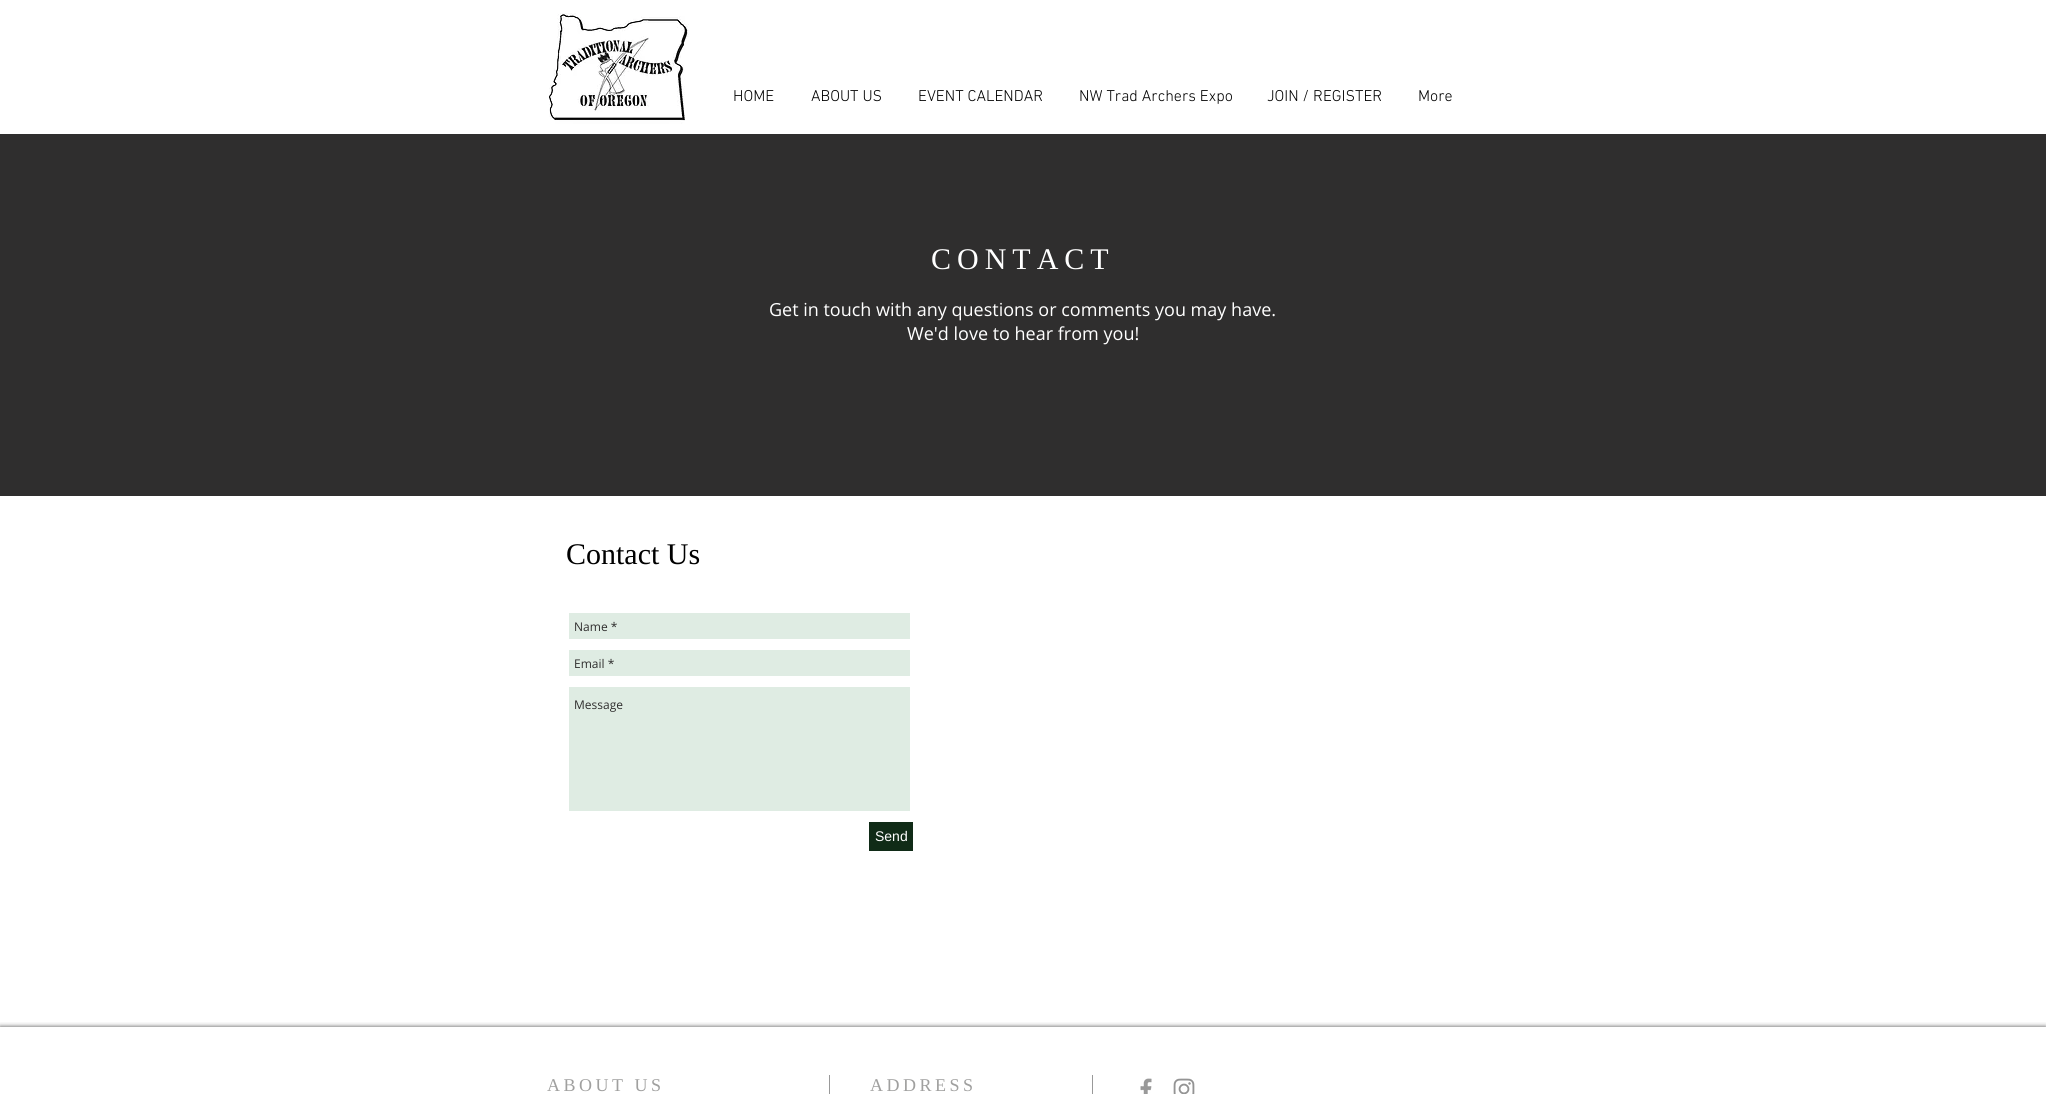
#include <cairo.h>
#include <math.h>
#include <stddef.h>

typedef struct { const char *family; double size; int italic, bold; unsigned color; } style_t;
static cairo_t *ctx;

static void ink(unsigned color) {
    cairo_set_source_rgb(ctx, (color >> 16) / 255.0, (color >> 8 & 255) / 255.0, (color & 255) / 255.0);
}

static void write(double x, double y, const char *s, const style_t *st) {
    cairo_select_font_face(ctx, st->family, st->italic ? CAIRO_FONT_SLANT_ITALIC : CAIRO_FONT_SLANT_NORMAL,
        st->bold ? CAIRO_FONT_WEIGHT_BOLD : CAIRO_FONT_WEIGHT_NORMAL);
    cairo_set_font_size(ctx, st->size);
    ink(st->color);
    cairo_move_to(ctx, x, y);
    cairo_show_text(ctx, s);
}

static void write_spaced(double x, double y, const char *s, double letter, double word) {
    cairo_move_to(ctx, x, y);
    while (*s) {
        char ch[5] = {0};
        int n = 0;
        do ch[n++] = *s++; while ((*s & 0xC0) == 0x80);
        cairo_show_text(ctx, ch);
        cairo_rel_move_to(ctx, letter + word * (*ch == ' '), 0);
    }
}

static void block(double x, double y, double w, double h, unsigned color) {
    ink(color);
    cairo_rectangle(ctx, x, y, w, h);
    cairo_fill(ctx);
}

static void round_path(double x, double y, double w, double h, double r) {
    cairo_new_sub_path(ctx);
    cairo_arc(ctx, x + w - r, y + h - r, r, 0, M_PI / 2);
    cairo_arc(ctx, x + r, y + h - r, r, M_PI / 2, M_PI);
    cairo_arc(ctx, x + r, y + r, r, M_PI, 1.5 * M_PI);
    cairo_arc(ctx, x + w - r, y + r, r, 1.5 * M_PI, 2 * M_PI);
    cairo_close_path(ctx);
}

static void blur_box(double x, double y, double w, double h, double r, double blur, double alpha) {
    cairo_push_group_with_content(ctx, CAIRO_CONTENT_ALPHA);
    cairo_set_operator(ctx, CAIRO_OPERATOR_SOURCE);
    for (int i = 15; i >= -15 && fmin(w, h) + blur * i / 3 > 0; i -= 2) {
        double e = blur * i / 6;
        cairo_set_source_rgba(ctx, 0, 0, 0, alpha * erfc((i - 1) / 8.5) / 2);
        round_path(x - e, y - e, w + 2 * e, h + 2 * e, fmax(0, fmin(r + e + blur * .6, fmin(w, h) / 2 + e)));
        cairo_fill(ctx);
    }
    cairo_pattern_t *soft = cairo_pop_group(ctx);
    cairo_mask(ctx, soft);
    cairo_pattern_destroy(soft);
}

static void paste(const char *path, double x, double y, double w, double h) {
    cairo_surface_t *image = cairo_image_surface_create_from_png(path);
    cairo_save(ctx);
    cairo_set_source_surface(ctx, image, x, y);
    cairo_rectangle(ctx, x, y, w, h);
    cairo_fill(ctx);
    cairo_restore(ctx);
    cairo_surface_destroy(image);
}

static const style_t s1 = {"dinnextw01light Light", 16, 0, 0, 0x000000};
static const style_t s2 = {"Open Sans", 18, 0, 0, 0xffffff};
static const style_t s3 = {"Liberation Serif", 30, 0, 0, 0x000000};
static const style_t s4 = {"Open Sans", 12, 0, 0, 0x2f2e2e};
static const style_t s5 = {"Liberation Sans", 14, 0, 0, 0xffffff};

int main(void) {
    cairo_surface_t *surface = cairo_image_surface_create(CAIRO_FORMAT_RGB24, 2046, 1094);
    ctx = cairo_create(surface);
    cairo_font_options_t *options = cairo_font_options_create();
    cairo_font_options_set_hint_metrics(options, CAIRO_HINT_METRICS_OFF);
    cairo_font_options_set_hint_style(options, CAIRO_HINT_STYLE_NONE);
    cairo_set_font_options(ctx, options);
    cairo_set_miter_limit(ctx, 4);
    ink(0xffffff);
    cairo_paint(ctx);
    paste("pic1.png", 549, 13, 140, 111);
    write(733, 101, "HOME", &s1);
    write(811, 101, "ABOUT US", &s1);
    write(918, 101, "EVENT CALENDAR", &s1);
    write(1079, 101, "NW Trad Archers Expo", &s1);
    write(1267, 101, "JOIN / REGISTER", &s1);
    write(1418, 101, "More", &s1);
    block(0, 134, 2046, 362, 0x2f2e2e);
    cairo_select_font_face(ctx, "Liberation Serif", CAIRO_FONT_SLANT_NORMAL, CAIRO_FONT_WEIGHT_NORMAL);
    cairo_set_font_size(ctx, 30);
    ink(0xffffff);
    write_spaced(931, 269, "CONTACT", 6, 0);
    write(769, 316, "Get in touch with any questions or comments you may have.", &s2);
    write(907, 340, "We'd love to hear from you!", &s2);
    write(566, 564, "Contact Us", &s3);
    block(569, 613, 341, 26, 0xdfece3);
    write(574, 631, "Name *", &s4);
    block(569, 650, 341, 26, 0xdfece3);
    write(574, 668, "Email *", &s4);
    block(569, 687, 341, 124, 0xdfece3);
    write(574, 709, "Message", &s4);
    block(869, 822, 44, 29, 0x102b17);
    write(875, 841, "Send", &s5);
    cairo_save(ctx);
    cairo_rectangle(ctx, 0, 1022, 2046, 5);
    cairo_clip(ctx);
    ink(0x000000);
    blur_box(0, 1027, 2046, 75, 0, 2.5, 0.7);
    cairo_restore(ctx);
    cairo_select_font_face(ctx, "Liberation Serif", CAIRO_FONT_SLANT_NORMAL, CAIRO_FONT_WEIGHT_NORMAL);
    cairo_set_font_size(ctx, 18);
    ink(0xa0a09f);
    write_spaced(547, 1091, "ABOUT US", 3.5, 0);
    block(829, 1075, 1, 19, 0x999999);
    ink(0xa0a09f);
    write_spaced(870, 1091, "ADDRESS", 3.5, 0);
    block(1092, 1075, 1, 19, 0x999999);
    paste("pic2.png", 1140, 1078, 12, 16);
    paste("pic3.png", 1173, 1078, 22, 16);
    cairo_surface_write_to_png(surface, "screenshot.png");
    cairo_font_options_destroy(options);
    cairo_destroy(ctx);
    cairo_surface_destroy(surface);
    return 0;
}
